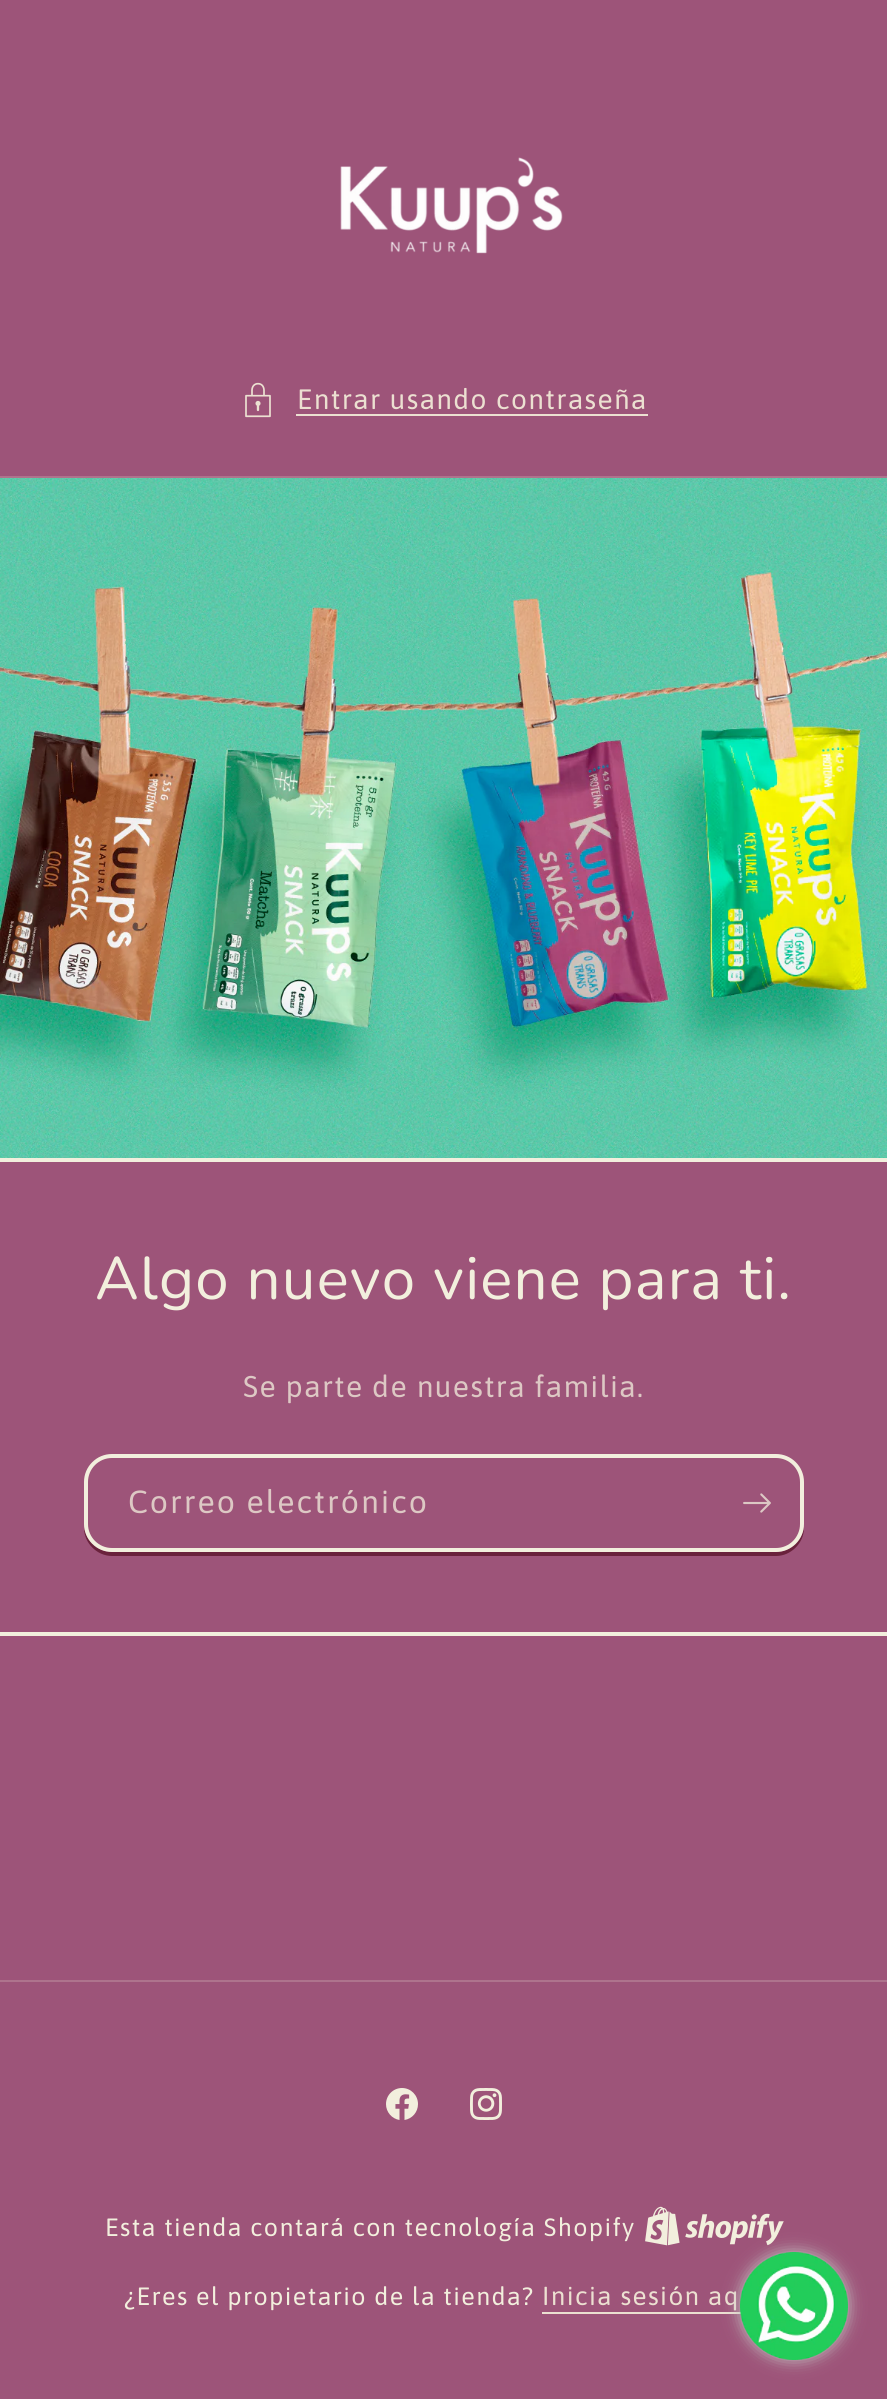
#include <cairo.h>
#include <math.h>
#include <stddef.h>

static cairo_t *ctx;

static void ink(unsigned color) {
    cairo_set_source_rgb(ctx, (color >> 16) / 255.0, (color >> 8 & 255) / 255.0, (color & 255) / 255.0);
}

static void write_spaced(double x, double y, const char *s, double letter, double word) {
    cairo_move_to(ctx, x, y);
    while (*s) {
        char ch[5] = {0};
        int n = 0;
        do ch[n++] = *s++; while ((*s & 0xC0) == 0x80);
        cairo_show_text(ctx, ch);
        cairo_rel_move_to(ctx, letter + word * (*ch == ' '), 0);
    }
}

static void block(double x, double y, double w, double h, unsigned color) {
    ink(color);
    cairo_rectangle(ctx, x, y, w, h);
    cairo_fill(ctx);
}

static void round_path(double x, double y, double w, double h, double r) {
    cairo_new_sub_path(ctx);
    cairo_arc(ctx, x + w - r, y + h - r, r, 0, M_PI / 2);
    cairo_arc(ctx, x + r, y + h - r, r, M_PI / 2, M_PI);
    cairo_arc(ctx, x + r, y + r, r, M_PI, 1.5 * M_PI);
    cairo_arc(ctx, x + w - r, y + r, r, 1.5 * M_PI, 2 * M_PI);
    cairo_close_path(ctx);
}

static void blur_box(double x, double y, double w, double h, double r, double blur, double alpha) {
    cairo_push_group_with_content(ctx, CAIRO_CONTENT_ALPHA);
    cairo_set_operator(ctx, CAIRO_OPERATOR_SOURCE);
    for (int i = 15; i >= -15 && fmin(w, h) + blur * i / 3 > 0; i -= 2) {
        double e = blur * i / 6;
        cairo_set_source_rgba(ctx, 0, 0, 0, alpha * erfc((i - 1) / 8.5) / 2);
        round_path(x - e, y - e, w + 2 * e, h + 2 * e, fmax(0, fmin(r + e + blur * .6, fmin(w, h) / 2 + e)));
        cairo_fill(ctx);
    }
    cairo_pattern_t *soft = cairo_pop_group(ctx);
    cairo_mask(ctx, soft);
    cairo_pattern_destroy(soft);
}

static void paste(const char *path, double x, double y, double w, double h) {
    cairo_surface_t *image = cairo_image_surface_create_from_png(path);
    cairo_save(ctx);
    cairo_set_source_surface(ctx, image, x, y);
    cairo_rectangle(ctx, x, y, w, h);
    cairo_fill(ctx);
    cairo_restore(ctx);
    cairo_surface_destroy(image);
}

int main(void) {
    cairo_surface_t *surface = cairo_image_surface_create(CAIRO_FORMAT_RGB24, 887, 2399);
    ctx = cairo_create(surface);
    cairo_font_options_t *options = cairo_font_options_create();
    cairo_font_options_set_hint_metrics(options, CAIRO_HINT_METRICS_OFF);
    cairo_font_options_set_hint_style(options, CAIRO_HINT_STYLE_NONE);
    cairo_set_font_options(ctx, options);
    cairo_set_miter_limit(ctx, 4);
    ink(0x9d5479);
    cairo_paint(ctx);
    paste("pic1.png", 340, 157, 223, 97);
    paste("pic2.png", 245, 382, 26, 36);
    cairo_select_font_face(ctx, "Asap", CAIRO_FONT_SLANT_NORMAL, CAIRO_FONT_WEIGHT_NORMAL);
    cairo_set_font_size(ctx, 28);
    ink(0xece0d1);
    write_spaced(297, 409, "Entrar usando contraseña", 1.4, 0);
    block(296, 414, 352, 2, 0xece0d1);
    block(0, 476, 887, 2, 0xae738d);
    paste("pic3.png", 0, 478, 887, 680);
    block(0, 1158, 887, 4, 0xf2efdd);
    block(0, 1632, 887, 4, 0xf2efdd);
    cairo_select_font_face(ctx, "Nunito", CAIRO_FONT_SLANT_NORMAL, CAIRO_FONT_WEIGHT_NORMAL);
    cairo_set_font_size(ctx, 60);
    write_spaced(95, 1299, "Algo nuevo viene para ti.", 1.2, 0);
    cairo_select_font_face(ctx, "Asap", CAIRO_FONT_SLANT_NORMAL, CAIRO_FONT_WEIGHT_NORMAL);
    cairo_set_font_size(ctx, 30);
    ink(0xddc8c4);
    write_spaced(243, 1397, "Se parte de nuestra familia.", 1.4, 0);
    ink(0x6a223c);
    cairo_new_path(ctx);
    cairo_move_to(ctx, 84, 1524);
    cairo_line_to(ctx, 84, 1528);
    cairo_curve_to(ctx, 84, 1543, 97, 1556, 112, 1556);
    cairo_line_to(ctx, 776, 1556);
    cairo_curve_to(ctx, 791, 1556, 804, 1543, 804, 1528);
    cairo_line_to(ctx, 804, 1524);
    cairo_curve_to(ctx, 804, 1539, 791, 1552, 776, 1552);
    cairo_line_to(ctx, 112, 1552);
    cairo_curve_to(ctx, 97, 1552, 84, 1539, 84, 1524);
    cairo_close_path(ctx);
    cairo_fill(ctx);
    round_path(86, 1456, 716, 94, 26);
    ink(0xf2efdd);
    cairo_set_line_width(ctx, 4);
    cairo_stroke(ctx);
    cairo_set_font_size(ctx, 32);
    ink(0xddc8c4);
    write_spaced(128, 1513, "Correo electrónico", 2, 0);
    paste("pic4.png", 743, 1493, 28, 20);
    block(0, 1980, 887, 2, 0xae738d);
    paste("pic5.png", 386, 2088, 32, 32);
    paste("pic6.png", 470, 2088, 32, 32);
    cairo_set_font_size(ctx, 25);
    ink(0xf2efdd);
    write_spaced(105, 2236, "Esta tienda contará con tecnología Shopify", 1.4, 0);
    paste("pic7.png", 645, 2206, 139, 40);
    write_spaced(124, 2305, "¿Eres el propietario de la tienda?", 1.4, 0);
    cairo_set_font_size(ctx, 26);
    ink(0xece0d1);
    write_spaced(542, 2305, "Inicia sesión aq", 1.4, 0);
    block(542, 2312, 199, 2, 0xece0d1);
    ink(0xc2c2c2);
    blur_box(740, 2252, 108, 108, 54, 8, 1);
    paste("pic8.png", 740, 2252, 108, 108);
    cairo_surface_write_to_png(surface, "screenshot.png");
    cairo_font_options_destroy(options);
    cairo_destroy(ctx);
    cairo_surface_destroy(surface);
    return 0;
}
